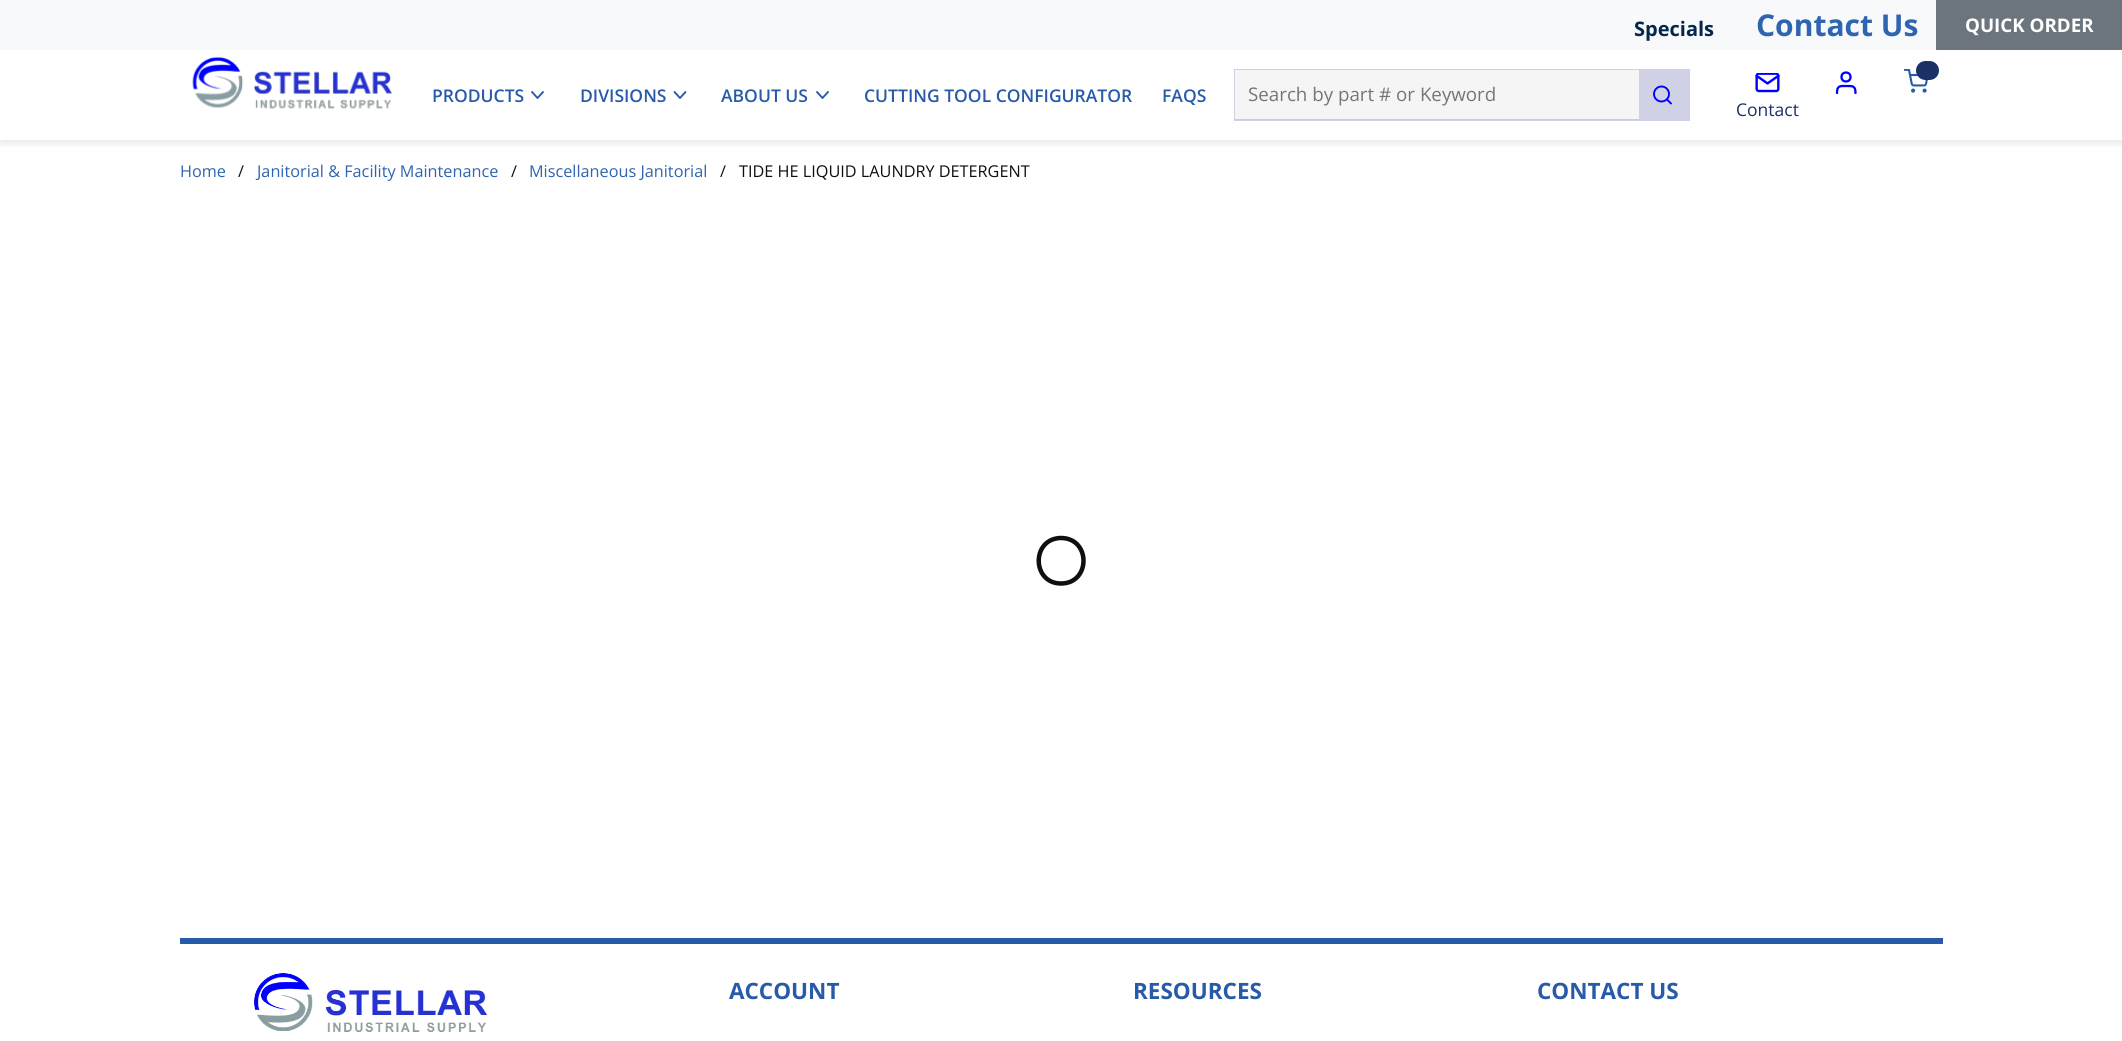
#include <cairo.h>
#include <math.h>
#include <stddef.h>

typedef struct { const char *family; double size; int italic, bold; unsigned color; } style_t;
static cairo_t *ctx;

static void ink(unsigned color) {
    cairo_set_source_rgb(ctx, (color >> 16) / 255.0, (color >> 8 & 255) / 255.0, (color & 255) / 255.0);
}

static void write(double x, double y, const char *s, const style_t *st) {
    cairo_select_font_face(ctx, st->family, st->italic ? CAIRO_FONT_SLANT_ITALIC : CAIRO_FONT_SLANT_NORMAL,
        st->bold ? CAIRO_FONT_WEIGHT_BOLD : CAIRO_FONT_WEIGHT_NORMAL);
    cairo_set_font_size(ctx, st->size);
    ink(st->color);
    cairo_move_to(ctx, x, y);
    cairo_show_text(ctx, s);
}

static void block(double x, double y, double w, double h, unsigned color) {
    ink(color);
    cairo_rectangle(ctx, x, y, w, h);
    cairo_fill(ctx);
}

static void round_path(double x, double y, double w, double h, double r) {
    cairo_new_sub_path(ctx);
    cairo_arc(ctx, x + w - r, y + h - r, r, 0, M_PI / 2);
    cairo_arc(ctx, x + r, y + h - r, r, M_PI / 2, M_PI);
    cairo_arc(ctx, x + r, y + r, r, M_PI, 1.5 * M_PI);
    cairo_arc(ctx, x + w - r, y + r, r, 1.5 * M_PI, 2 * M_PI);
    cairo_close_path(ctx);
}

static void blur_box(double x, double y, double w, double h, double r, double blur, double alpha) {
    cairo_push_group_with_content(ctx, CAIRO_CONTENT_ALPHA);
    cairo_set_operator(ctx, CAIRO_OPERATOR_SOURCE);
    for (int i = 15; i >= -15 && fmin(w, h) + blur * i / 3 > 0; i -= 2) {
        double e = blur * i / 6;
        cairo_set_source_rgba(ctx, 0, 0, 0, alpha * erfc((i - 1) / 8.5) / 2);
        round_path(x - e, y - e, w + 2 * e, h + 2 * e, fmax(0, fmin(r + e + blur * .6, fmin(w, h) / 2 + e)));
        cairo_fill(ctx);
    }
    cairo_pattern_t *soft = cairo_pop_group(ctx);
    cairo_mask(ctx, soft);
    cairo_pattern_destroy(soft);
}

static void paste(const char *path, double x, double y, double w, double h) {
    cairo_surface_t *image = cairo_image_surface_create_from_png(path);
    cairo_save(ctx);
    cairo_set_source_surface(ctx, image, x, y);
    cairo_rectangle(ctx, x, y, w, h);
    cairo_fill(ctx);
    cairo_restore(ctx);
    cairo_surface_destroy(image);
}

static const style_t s1 = {"Open Sans", 20, 0, 1, 0x06274c};
static const style_t s2 = {"Open Sans", 30, 0, 1, 0x2e64b0};
static const style_t s3 = {"Open Sans", 18.75, 0, 1, 0xffffff};
static const style_t s4 = {"Open Sans SemiBold", 17.5, 0, 0, 0x275aa8};
static const style_t s5 = {"Open Sans", 18.75, 0, 0, 0x757575};
static const style_t s6 = {"Open Sans", 17.5, 0, 0, 0x193166};
static const style_t s7 = {"Open Sans", 16.25, 0, 0, 0x2e64b0};
static const style_t s8 = {"Open Sans", 16.25, 0, 0, 0x0f0f0f};
static const style_t s9 = {"Open Sans", 22.5, 0, 1, 0x275aa8};

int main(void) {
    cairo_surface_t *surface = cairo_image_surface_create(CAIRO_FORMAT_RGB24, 2122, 1041);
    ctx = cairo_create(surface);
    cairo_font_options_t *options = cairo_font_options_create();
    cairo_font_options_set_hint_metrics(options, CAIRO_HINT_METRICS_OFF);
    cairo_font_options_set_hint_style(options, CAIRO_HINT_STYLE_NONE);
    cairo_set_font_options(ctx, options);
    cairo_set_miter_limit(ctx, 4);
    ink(0xffffff);
    cairo_paint(ctx);
    cairo_save(ctx);
    cairo_rectangle(ctx, 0, 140, 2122, 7);
    cairo_clip(ctx);
    ink(0x000000);
    blur_box(0, 4, 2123, 140, 0, 4, 0.09);
    cairo_restore(ctx);
    block(0, 0, 1936, 50, 0xf8f9fa);
    write(1634, 36, "Specials", &s1);
    write(1756, 36, "Contact Us", &s2);
    block(1936, 0, 186, 50, 0x6c757d);
    write(1965, 32, "QUICK ORDER", &s3);
    paste("pic1.png", 192, 56, 201, 53);
    write(432, 102, "PRODUCTS", &s4);
    cairo_new_path(ctx);
    cairo_move_to(ctx, 532, 92);
    cairo_line_to(ctx, 537.5, 98);
    cairo_line_to(ctx, 543, 92);
    cairo_set_line_width(ctx, 1.9);
    cairo_set_line_cap(ctx, CAIRO_LINE_CAP_ROUND);
    cairo_set_line_join(ctx, CAIRO_LINE_JOIN_ROUND);
    cairo_stroke(ctx);
    write(580, 102, "DIVISIONS", &s4);
    cairo_new_path(ctx);
    cairo_move_to(ctx, 674.5, 92);
    cairo_line_to(ctx, 680, 98);
    cairo_line_to(ctx, 685.5, 92);
    cairo_stroke(ctx);
    write(721, 102, "ABOUT US", &s4);
    cairo_new_path(ctx);
    cairo_move_to(ctx, 817, 92);
    cairo_line_to(ctx, 822.5, 98);
    cairo_line_to(ctx, 828, 92);
    cairo_stroke(ctx);
    write(864, 102, "CUTTING TOOL CONFIGURATOR", &s4);
    write(1162, 102, "FAQS", &s4);
    cairo_rectangle(ctx, 1234.5, 69.5, 455, 51);
    ink(0xd1d1e6);
    cairo_set_line_width(ctx, 1);
    cairo_set_line_cap(ctx, CAIRO_LINE_CAP_BUTT);
    cairo_set_line_join(ctx, CAIRO_LINE_JOIN_MITER);
    cairo_stroke(ctx);
    block(1235, 70, 404, 49, 0xf5f5f5);
    block(1235, 119, 404, 1, 0xcccccc);
    write(1248, 101, "Search by part # or Keyword", &s5);
    block(1639, 70, 50, 50, 0xd1d1e6);
    cairo_new_path(ctx);
    cairo_arc(ctx, 1661.5, 94, 7.5, 0, 2 * M_PI);
    ink(0x0000ff);
    cairo_set_line_width(ctx, 1.9);
    cairo_stroke(ctx);
    cairo_new_path(ctx);
    cairo_move_to(ctx, 1671, 103.5);
    cairo_line_to(ctx, 1667, 99.5);
    cairo_set_line_cap(ctx, CAIRO_LINE_CAP_ROUND);
    cairo_set_line_join(ctx, CAIRO_LINE_JOIN_ROUND);
    cairo_stroke(ctx);
    paste("pic2.png", 1904, 69, 24, 24);
    ink(0x193166);
    round_path(1916, 61, 23, 19, 9.5);
    cairo_fill(ctx);
    cairo_new_path(ctx);
    cairo_move_to(ctx, 1855.5, 93);
    cairo_curve_to(ctx, 1855.5, 85.5, 1852.5, 86, 1846, 86);
    cairo_curve_to(ctx, 1840, 86, 1837, 85.5, 1837, 93);
    ink(0x0000ff);
    cairo_set_line_width(ctx, 2.3);
    cairo_stroke(ctx);
    cairo_arc(ctx, 1846, 77, 4.5, 0, 2 * M_PI);
    cairo_set_line_cap(ctx, CAIRO_LINE_CAP_BUTT);
    cairo_set_line_join(ctx, CAIRO_LINE_JOIN_MITER);
    cairo_stroke(ctx);
    paste("pic3.png", 1755, 73, 25, 20);
    write(1736, 116, "Contact", &s6);
    write(180, 177, "Home", &s7);
    write(238, 177, "/", &s8);
    write(257, 177, "Janitorial & Facility Maintenance", &s7);
    write(511, 177, "/", &s8);
    write(529, 177, "Miscellaneous Janitorial", &s7);
    write(720, 177, "/", &s8);
    write(739, 177, "TIDE HE LIQUID LAUNDRY DETERGENT", &s8);
    cairo_new_path(ctx);
    cairo_move_to(ctx, 1061, 538);
    cairo_curve_to(ctx, 1091, 538, 1091, 583.5, 1061, 583.5);
    cairo_curve_to(ctx, 1032, 583.5, 1031, 539.5, 1060, 538);
    cairo_set_line_width(ctx, 4.5);
    cairo_set_line_cap(ctx, CAIRO_LINE_CAP_ROUND);
    cairo_stroke(ctx);
    block(180, 938, 1763, 6, 0x275aa8);
    paste("pic4.png", 254, 973, 234, 60);
    write(729, 999, "ACCOUNT", &s9);
    write(1133, 999, "RESOURCES", &s9);
    write(1537, 999, "CONTACT US", &s9);
    cairo_surface_write_to_png(surface, "screenshot.png");
    cairo_font_options_destroy(options);
    cairo_destroy(ctx);
    cairo_surface_destroy(surface);
    return 0;
}
